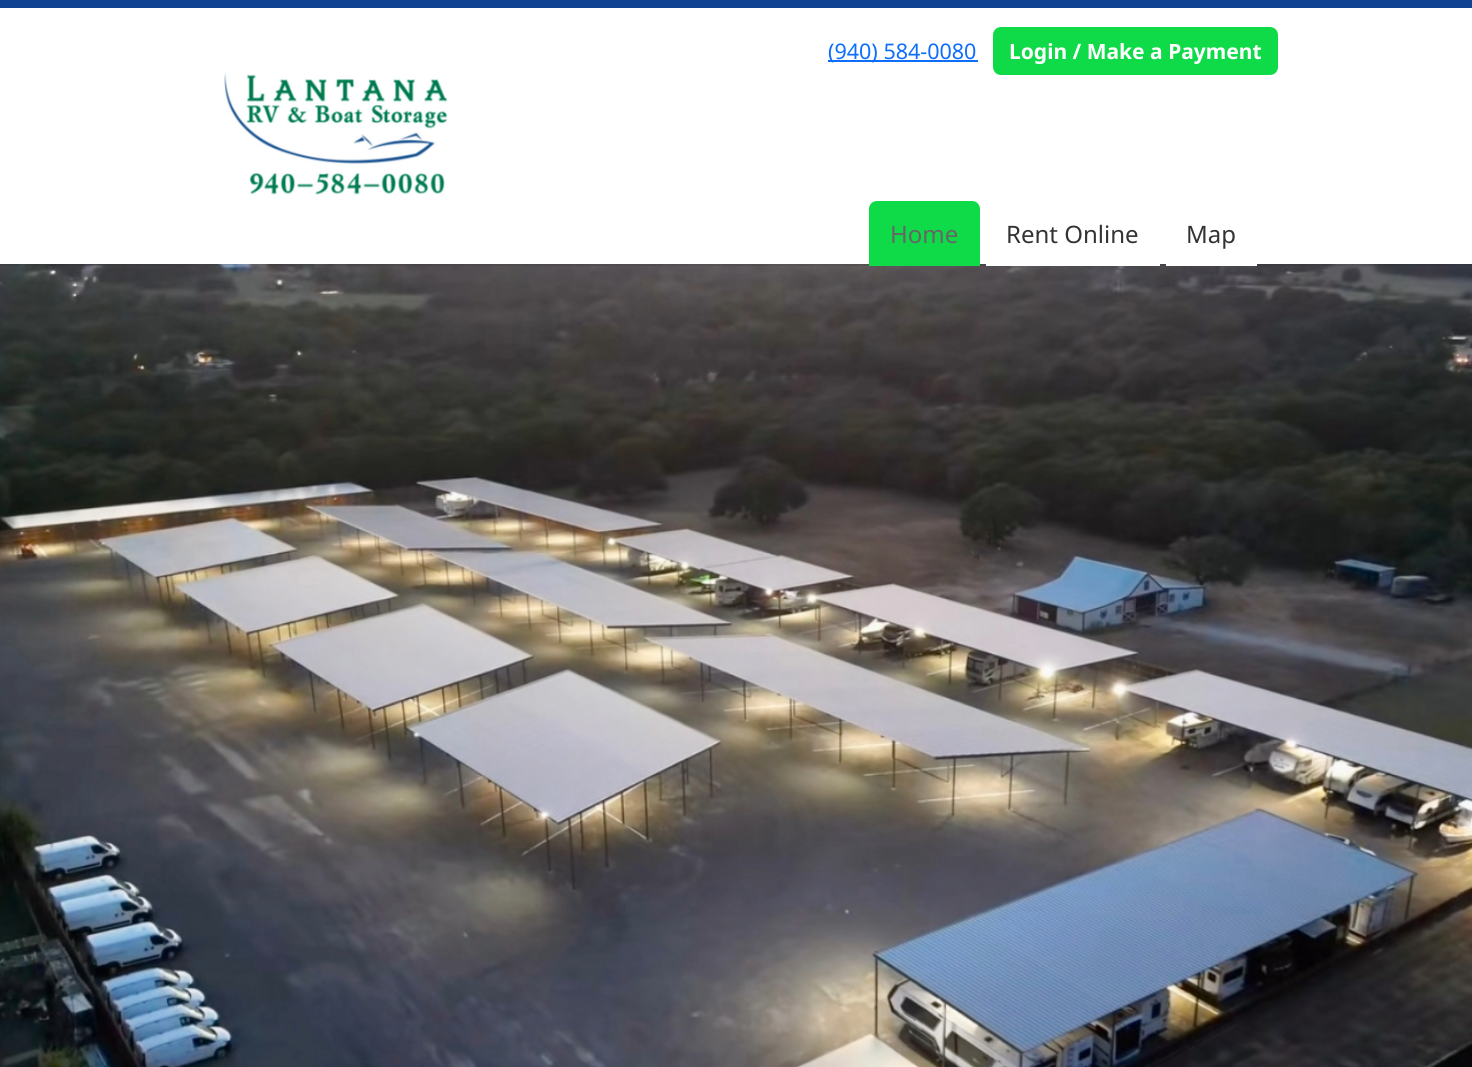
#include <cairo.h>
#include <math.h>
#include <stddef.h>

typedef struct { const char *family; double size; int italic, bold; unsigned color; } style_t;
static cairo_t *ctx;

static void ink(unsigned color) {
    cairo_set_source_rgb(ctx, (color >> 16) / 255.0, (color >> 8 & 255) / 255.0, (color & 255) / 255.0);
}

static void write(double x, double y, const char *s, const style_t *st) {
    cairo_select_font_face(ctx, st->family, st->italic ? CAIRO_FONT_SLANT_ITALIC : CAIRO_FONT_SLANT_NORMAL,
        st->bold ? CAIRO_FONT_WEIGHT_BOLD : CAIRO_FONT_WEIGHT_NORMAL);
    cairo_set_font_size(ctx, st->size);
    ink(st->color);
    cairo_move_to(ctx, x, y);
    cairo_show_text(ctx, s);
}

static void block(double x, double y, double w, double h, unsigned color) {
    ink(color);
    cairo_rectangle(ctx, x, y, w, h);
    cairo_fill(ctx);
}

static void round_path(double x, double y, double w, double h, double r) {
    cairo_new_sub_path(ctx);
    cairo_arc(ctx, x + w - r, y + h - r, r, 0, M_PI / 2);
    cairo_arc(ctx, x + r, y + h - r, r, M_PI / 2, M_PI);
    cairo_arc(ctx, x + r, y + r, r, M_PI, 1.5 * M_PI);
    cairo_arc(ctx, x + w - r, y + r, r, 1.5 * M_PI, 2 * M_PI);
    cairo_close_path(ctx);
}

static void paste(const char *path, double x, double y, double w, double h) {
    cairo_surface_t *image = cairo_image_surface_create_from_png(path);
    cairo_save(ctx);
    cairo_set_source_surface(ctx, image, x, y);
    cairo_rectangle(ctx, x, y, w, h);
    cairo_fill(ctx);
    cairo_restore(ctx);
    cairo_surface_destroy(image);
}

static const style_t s1 = {"Noto Sans", 21.5, 0, 0, 0x0d6efd};
static const style_t s2 = {"Noto Sans", 21, 0, 1, 0xffffff};
static const style_t s3 = {"Noto Sans", 24, 0, 0, 0x666666};
static const style_t s4 = {"Noto Sans", 24, 0, 0, 0x333333};

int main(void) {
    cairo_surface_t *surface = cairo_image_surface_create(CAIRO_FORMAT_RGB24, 1472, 1067);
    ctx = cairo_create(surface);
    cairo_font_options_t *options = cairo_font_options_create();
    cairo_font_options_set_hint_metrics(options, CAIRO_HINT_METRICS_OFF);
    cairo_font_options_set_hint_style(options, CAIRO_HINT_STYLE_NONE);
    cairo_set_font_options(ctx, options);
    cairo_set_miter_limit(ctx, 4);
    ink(0xffffff);
    cairo_paint(ctx);
    paste("pic2.png", 0, 264, 1472, 803);
    cairo_set_source_rgba(ctx, 0, 0, 0, 0.1);
    cairo_rectangle(ctx, 0, 264, 1472, 2);
    cairo_fill(ctx);
    block(0, 0, 1472, 8, 0x114393);
    block(828, 60, 150, 2, 0x0d6efd);
    write(828, 59, "(940) 584-0080", &s1);
    ink(0x0edb47);
    round_path(993, 27, 285, 48, 8);
    cairo_fill(ctx);
    write(1009, 59, "Login / Make a Payment", &s2);
    paste("pic1.png", 224, 72, 224, 123);
    ink(0x0edb47);
    cairo_new_path(ctx);
    cairo_move_to(ctx, 877, 201);
    cairo_line_to(ctx, 972, 201);
    cairo_curve_to(ctx, 976.5, 201, 980, 204.5, 980, 209);
    cairo_line_to(ctx, 980, 266);
    cairo_line_to(ctx, 869, 266);
    cairo_line_to(ctx, 869, 209);
    cairo_curve_to(ctx, 869, 204.5, 872.5, 201, 877, 201);
    cairo_close_path(ctx);
    cairo_fill(ctx);
    write(890, 243, "Home", &s3);
    ink(0xffffff);
    cairo_new_path(ctx);
    cairo_move_to(ctx, 994, 201);
    cairo_line_to(ctx, 1152, 201);
    cairo_curve_to(ctx, 1156.5, 201, 1160, 204.5, 1160, 209);
    cairo_line_to(ctx, 1160, 266);
    cairo_line_to(ctx, 986, 266);
    cairo_line_to(ctx, 986, 209);
    cairo_curve_to(ctx, 986, 204.5, 989.5, 201, 994, 201);
    cairo_close_path(ctx);
    cairo_fill(ctx);
    write(1006, 243, "Rent Online", &s4);
    ink(0xffffff);
    cairo_new_path(ctx);
    cairo_move_to(ctx, 1174, 201);
    cairo_line_to(ctx, 1249, 201);
    cairo_curve_to(ctx, 1253.5, 201, 1257, 204.5, 1257, 209);
    cairo_line_to(ctx, 1257, 266);
    cairo_line_to(ctx, 1166, 266);
    cairo_line_to(ctx, 1166, 209);
    cairo_curve_to(ctx, 1166, 204.5, 1169.5, 201, 1174, 201);
    cairo_close_path(ctx);
    cairo_fill(ctx);
    write(1186, 243, "Map", &s4);
    cairo_surface_write_to_png(surface, "screenshot.png");
    cairo_font_options_destroy(options);
    cairo_destroy(ctx);
    cairo_surface_destroy(surface);
    return 0;
}
